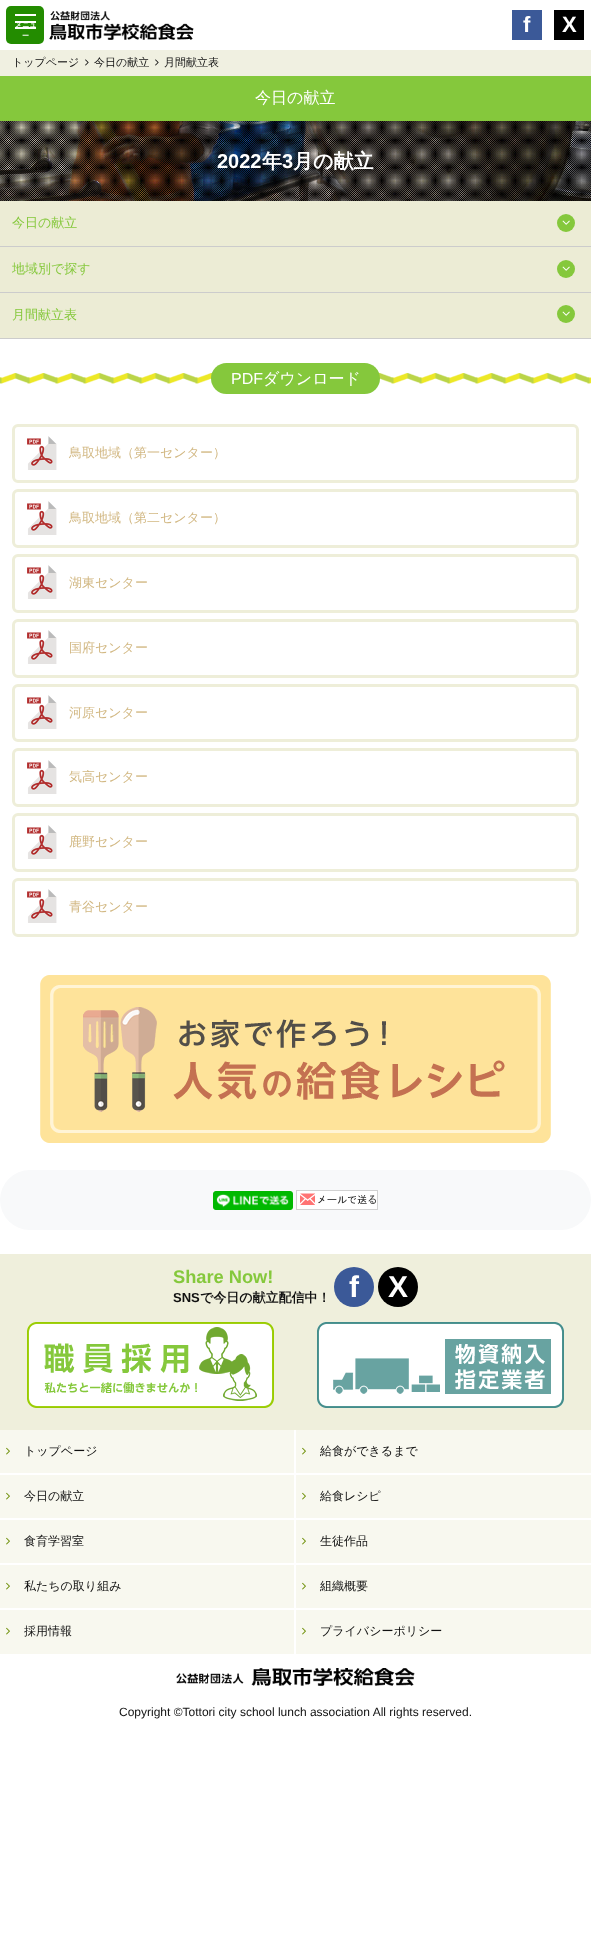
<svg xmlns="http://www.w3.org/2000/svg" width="591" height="1938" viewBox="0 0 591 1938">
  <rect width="100%" height="100%" fill="rgb(255,255,255)"/>
  <rect x="6" y="6" width="38" height="38" rx="5" fill="rgb(35,140,0)"/>
  <rect x="15" y="14" width="21" height="2" fill="rgb(255,255,255)"/>
  <rect x="15" y="21" width="21" height="2" fill="rgb(255,255,255)"/>
  <rect x="15" y="27" width="21" height="2" fill="rgb(255,255,255)"/>
  <g font-family="WenQuanYi Zen Hei" font-size="7" font-weight="bold" fill="rgb(255,255,255)">
    <text x="15" y="27">メニュ</text>
    <text x="22" y="38">ー</text>
  </g>
  <image x="49" y="11" width="145" height="29" href="pic1.png"/>
  <rect x="512" y="10" width="30" height="30" fill="rgb(59,89,152)"/>
  <text x="523" y="32" font-family="Liberation Sans" font-size="22" font-weight="bold" fill="rgb(255,255,255)">f</text>
  <rect x="554" y="10" width="30" height="30" fill="rgb(0,0,0)"/>
  <text x="562" y="32" font-family="Liberation Sans" font-size="22" font-weight="bold" fill="rgb(255,255,255)">X</text>
  <rect x="0" y="50" width="591" height="26" fill="rgb(240,240,225)"/>
  <text x="12" y="66" font-family="WenQuanYi Zen Hei" font-size="11" font-weight="500" fill="rgb(17,17,17)">トップページ</text>
  <image x="85" y="59" width="4" height="7" href="pic2.png"/>
  <text x="94" y="66" font-family="WenQuanYi Zen Hei" font-size="11" font-weight="500" fill="rgb(17,17,17)">今日の献立</text>
  <image x="155" y="59" width="4" height="7" href="pic2.png"/>
  <text x="164" y="66" font-family="WenQuanYi Zen Hei" font-size="11" font-weight="500" fill="rgb(17,17,17)">月間献立表</text>
  <rect x="0" y="76" width="591" height="45" fill="rgb(133,200,60)"/>
  <text x="255" y="103" font-family="WenQuanYi Zen Hei" font-size="16" font-weight="500" fill="rgb(255,255,255)">今日の献立</text>
  <image x="0" y="121" width="591" height="80" href="pic3.png"/>
  <text x="217" y="168" font-family="Liberation Sans" font-size="20" font-weight="bold" fill="rgb(255,255,255)">2022</text>
  <text x="262" y="168" font-family="WenQuanYi Zen Hei" font-size="20" font-weight="bold" fill="rgb(255,255,255)">年</text>
  <text x="282" y="168" font-family="Liberation Sans" font-size="20" font-weight="bold" fill="rgb(255,255,255)">3</text>
  <text x="293" y="168" font-family="WenQuanYi Zen Hei" font-size="20" font-weight="bold" fill="rgb(255,255,255)">月の献立</text>
  <rect x="0" y="201" width="591" height="45" fill="rgb(236,236,213)"/>
  <rect x="0" y="246" width="591" height="1" fill="rgb(204,204,204)"/>
  <text x="12" y="227" font-family="WenQuanYi Zen Hei" font-size="13" font-weight="500" fill="rgb(133,200,60)">今日の献立</text>
  <circle cx="566" cy="223" r="9" fill="rgb(133,200,60)"/>
  <image x="562" y="220" width="8" height="5" href="pic4.png"/>
  <rect x="0" y="247" width="591" height="45" fill="rgb(236,236,213)"/>
  <rect x="0" y="292" width="591" height="1" fill="rgb(204,204,204)"/>
  <text x="12" y="273" font-family="WenQuanYi Zen Hei" font-size="13" font-weight="500" fill="rgb(133,200,60)">地域別で探す</text>
  <circle cx="566" cy="269" r="9" fill="rgb(133,200,60)"/>
  <image x="562" y="266" width="8" height="5" href="pic4.png"/>
  <rect x="0" y="293" width="591" height="45" fill="rgb(236,236,213)"/>
  <rect x="0" y="338" width="591" height="1" fill="rgb(204,204,204)"/>
  <text x="12" y="319" font-family="WenQuanYi Zen Hei" font-size="13" font-weight="500" fill="rgb(133,200,60)">月間献立表</text>
  <circle cx="566" cy="314" r="9" fill="rgb(133,200,60)"/>
  <image x="562" y="311" width="8" height="5" href="pic4.png"/>
  <image x="0" y="373" width="591" height="11" href="pic5.png"/>
  <rect x="211" y="363" width="169" height="31" rx="15.5" fill="rgb(133,200,60)"/>
  <text x="231" y="384" font-family="Liberation Sans" font-size="16" fill="rgb(255,255,255)">PDF</text>
  <text x="263" y="384" font-family="WenQuanYi Zen Hei" font-size="16" font-weight="500" fill="rgb(255,255,255)">ダウンロード</text>
  <rect x="13.5" y="425.5" width="564" height="56" rx="4.5" fill="none" stroke="rgb(238,238,217)" stroke-width="3"/>
  <image x="27" y="436" width="30" height="34" href="pic6.png"/>
  <text x="69" y="457" font-family="WenQuanYi Zen Hei" font-size="13" font-weight="500" fill="rgb(210,184,131)">鳥取地域（第一センター）</text>
  <rect x="13.5" y="490.5" width="564" height="56" rx="4.5" fill="none" stroke="rgb(238,238,217)" stroke-width="3"/>
  <image x="27" y="501" width="30" height="34" href="pic6.png"/>
  <text x="69" y="522" font-family="WenQuanYi Zen Hei" font-size="13" font-weight="500" fill="rgb(210,184,131)">鳥取地域（第二センター）</text>
  <rect x="13.5" y="555.5" width="564" height="56" rx="4.5" fill="none" stroke="rgb(238,238,217)" stroke-width="3"/>
  <image x="27" y="565" width="30" height="34" href="pic6.png"/>
  <text x="69" y="587" font-family="WenQuanYi Zen Hei" font-size="13" font-weight="500" fill="rgb(210,184,131)">湖東センター</text>
  <rect x="13.5" y="620.5" width="564" height="56" rx="4.5" fill="none" stroke="rgb(238,238,217)" stroke-width="3"/>
  <image x="27" y="630" width="30" height="34" href="pic6.png"/>
  <text x="69" y="652" font-family="WenQuanYi Zen Hei" font-size="13" font-weight="500" fill="rgb(210,184,131)">国府センター</text>
  <rect x="13.5" y="685.5" width="564" height="55" rx="4.5" fill="none" stroke="rgb(238,238,217)" stroke-width="3"/>
  <image x="27" y="695" width="30" height="34" href="pic6.png"/>
  <text x="69" y="717" font-family="WenQuanYi Zen Hei" font-size="13" font-weight="500" fill="rgb(210,184,131)">河原センター</text>
  <rect x="13.5" y="749.5" width="564" height="56" rx="4.5" fill="none" stroke="rgb(238,238,217)" stroke-width="3"/>
  <image x="27" y="760" width="30" height="34" href="pic6.png"/>
  <text x="69" y="781" font-family="WenQuanYi Zen Hei" font-size="13" font-weight="500" fill="rgb(210,184,131)">気高センター</text>
  <rect x="13.5" y="814.5" width="564" height="56" rx="4.5" fill="none" stroke="rgb(238,238,217)" stroke-width="3"/>
  <image x="27" y="825" width="30" height="34" href="pic6.png"/>
  <text x="69" y="846" font-family="WenQuanYi Zen Hei" font-size="13" font-weight="500" fill="rgb(210,184,131)">鹿野センター</text>
  <rect x="13.5" y="879.5" width="564" height="56" rx="4.5" fill="none" stroke="rgb(238,238,217)" stroke-width="3"/>
  <image x="27" y="889" width="30" height="34" href="pic6.png"/>
  <text x="69" y="911" font-family="WenQuanYi Zen Hei" font-size="13" font-weight="500" fill="rgb(210,184,131)">青谷センター</text>
  <image x="40" y="975" width="511" height="168" href="pic7.png"/>
  <rect x="0" y="1170" width="591" height="60" rx="30" fill="rgb(248,249,250)"/>
  <image x="213" y="1191" width="80" height="19" href="pic8.png"/>
  <image x="296" y="1190" width="82" height="20" href="pic9.png"/>
  <rect x="0" y="1254" width="591" height="176" fill="rgb(239,239,220)"/>
  <text x="173" y="1283" font-family="Liberation Sans" font-size="18.25" font-weight="bold" fill="rgb(133,200,60)">Share Now!</text>
  <text x="173" y="1302" font-family="Liberation Sans" font-size="13" font-weight="bold" fill="rgb(17,17,17)">SNS</text>
  <text x="200" y="1302" font-family="WenQuanYi Zen Hei" font-size="13" font-weight="bold" fill="rgb(17,17,17)">で今日の献立配信中！</text>
  <circle cx="354" cy="1287" r="20" fill="rgb(59,89,152)"/>
  <text x="349" y="1297" font-family="Liberation Sans" font-size="30" font-weight="bold" fill="rgb(255,255,255)">f</text>
  <circle cx="398" cy="1287" r="20" fill="rgb(0,0,0)"/>
  <text x="388" y="1297" font-family="Liberation Sans" font-size="30" font-weight="bold" fill="rgb(255,255,255)">X</text>
  <image x="27" y="1322" width="247" height="86" href="pic10.png"/>
  <image x="317" y="1322" width="247" height="86" href="pic11.png"/>
  <rect x="0" y="1430" width="294" height="43" fill="rgb(248,248,239)"/>
  <image x="6" y="1447" width="4" height="8" href="pic12.png"/>
  <text x="24" y="1455" font-family="WenQuanYi Zen Hei" font-size="12" font-weight="500" fill="rgb(17,17,17)">トップページ</text>
  <rect x="296" y="1430" width="295" height="43" fill="rgb(248,248,239)"/>
  <image x="302" y="1447" width="4" height="8" href="pic12.png"/>
  <text x="320" y="1455" font-family="WenQuanYi Zen Hei" font-size="12" font-weight="500" fill="rgb(17,17,17)">給食ができるまで</text>
  <rect x="0" y="1475" width="294" height="43" fill="rgb(248,248,239)"/>
  <image x="6" y="1492" width="4" height="8" href="pic12.png"/>
  <text x="24" y="1500" font-family="WenQuanYi Zen Hei" font-size="12" font-weight="500" fill="rgb(17,17,17)">今日の献立</text>
  <rect x="296" y="1475" width="295" height="43" fill="rgb(248,248,239)"/>
  <image x="302" y="1492" width="4" height="8" href="pic12.png"/>
  <text x="320" y="1500" font-family="WenQuanYi Zen Hei" font-size="12" font-weight="500" fill="rgb(17,17,17)">給食レシピ</text>
  <rect x="0" y="1520" width="294" height="43" fill="rgb(248,248,239)"/>
  <image x="6" y="1537" width="4" height="8" href="pic12.png"/>
  <text x="24" y="1545" font-family="WenQuanYi Zen Hei" font-size="12" font-weight="500" fill="rgb(17,17,17)">食育学習室</text>
  <rect x="296" y="1520" width="295" height="43" fill="rgb(248,248,239)"/>
  <image x="302" y="1537" width="4" height="8" href="pic12.png"/>
  <text x="320" y="1545" font-family="WenQuanYi Zen Hei" font-size="12" font-weight="500" fill="rgb(17,17,17)">生徒作品</text>
  <rect x="0" y="1565" width="294" height="43" fill="rgb(248,248,239)"/>
  <image x="6" y="1582" width="4" height="8" href="pic12.png"/>
  <text x="24" y="1590" font-family="WenQuanYi Zen Hei" font-size="12" font-weight="500" fill="rgb(17,17,17)">私たちの取り組み</text>
  <rect x="296" y="1565" width="295" height="43" fill="rgb(248,248,239)"/>
  <image x="302" y="1582" width="4" height="8" href="pic12.png"/>
  <text x="320" y="1590" font-family="WenQuanYi Zen Hei" font-size="12" font-weight="500" fill="rgb(17,17,17)">組織概要</text>
  <rect x="0" y="1610" width="294" height="44" fill="rgb(248,248,239)"/>
  <image x="6" y="1627" width="4" height="8" href="pic12.png"/>
  <text x="24" y="1635" font-family="WenQuanYi Zen Hei" font-size="12" font-weight="500" fill="rgb(17,17,17)">採用情報</text>
  <rect x="296" y="1610" width="295" height="44" fill="rgb(248,248,239)"/>
  <image x="302" y="1627" width="4" height="8" href="pic12.png"/>
  <text x="320" y="1635" font-family="WenQuanYi Zen Hei" font-size="12" font-weight="500" fill="rgb(17,17,17)">プライバシーポリシー</text>
  <image x="176" y="1668" width="239" height="18" href="pic13.png"/>
  <text x="119" y="1716" font-family="Liberation Sans" font-size="12" fill="rgb(17,17,17)">Copyright ©Tottori city school lunch association All rights reserved.</text>
</svg>
